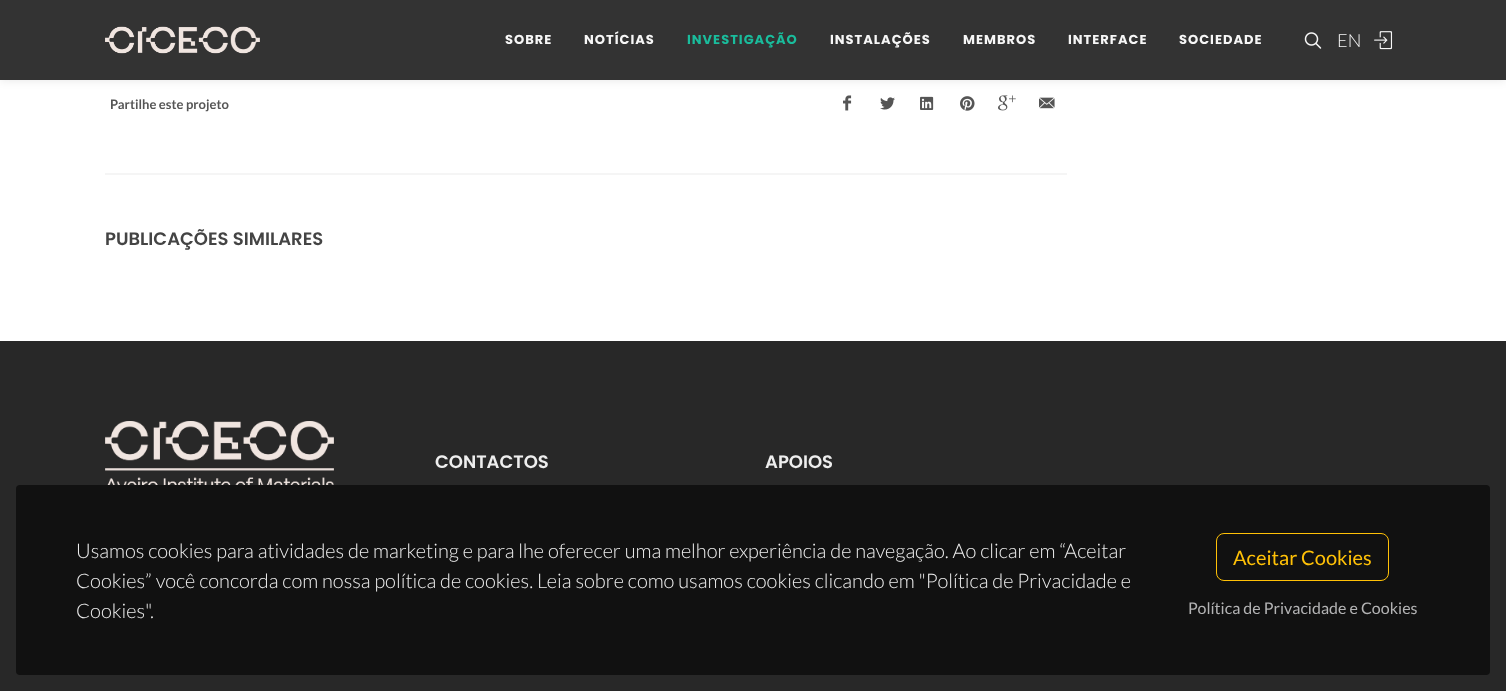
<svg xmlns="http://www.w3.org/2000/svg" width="1506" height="691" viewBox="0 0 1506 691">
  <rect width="100%" height="100%" fill="rgb(255,255,255)"/>
  <image x="843" y="95" width="9" height="16" href="pic4.png"/>
  <image x="998" y="95" width="18" height="16" href="pic8.png"/>
  <rect x="0" y="0" width="1506" height="80" fill="rgba(0,0,0,0.1)" filter="blur(5px)"/>
  <rect x="0" y="0" width="1506" height="80" fill="rgb(51,51,51)"/>
  <image x="105" y="26" width="155" height="28" href="pic1.png"/>
  <g font-family="Poppins" font-size="13" font-weight="bold" letter-spacing="1" fill="rgb(247,247,247)">
    <text x="505" y="44">SOBRE</text>
    <text x="584" y="44">NOTÍCIAS</text>
  </g>
  <text x="687" y="44" font-family="Poppins" font-size="13" font-weight="bold" letter-spacing="1" fill="rgb(26,188,156)">INVESTIGAÇÃO</text>
  <g font-family="Poppins" font-size="13" font-weight="bold" letter-spacing="1" fill="rgb(247,247,247)">
    <text x="830" y="44">INSTALAÇÕES</text>
    <text x="963" y="44">MEMBROS</text>
    <text x="1068" y="44">INTERFACE</text>
    <text x="1179" y="44">SOCIEDADE</text>
  </g>
  <image x="1304" y="32" width="18" height="17" href="pic2.png"/>
  <text x="1337" y="47" font-family="Lato" font-size="18" font-weight="300" fill="rgb(247,247,247)">EN</text>
  <image x="1374" y="31" width="19" height="19" href="pic3.png"/>
  <text x="110" y="109" font-family="Lato" font-size="13" font-weight="bold" fill="rgb(85,85,85)">Partilhe este projeto</text>
  <image x="880" y="97" width="15" height="13" href="pic5.png"/>
  <image x="920" y="96" width="14" height="14" href="pic6.png"/>
  <image x="960" y="96" width="15" height="15" href="pic7.png"/>
  <image x="1039" y="97" width="16" height="12" href="pic9.png"/>
  <rect x="105" y="173" width="962" height="2" fill="rgb(245,245,245)"/>
  <text x="105" y="245" font-family="Poppins" font-size="18" font-weight="600" fill="rgb(68,68,68)">PUBLICAÇÕES SIMILARES</text>
  <rect x="0" y="341" width="1506" height="350" fill="rgb(40,40,40)"/>
  <image x="105" y="421" width="229" height="64" href="pic10.png"/>
  <g font-family="Poppins" font-size="18" font-weight="600" fill="rgb(238,238,238)">
    <text x="435" y="468">CONTACTOS</text>
    <text x="765" y="468">APOIOS</text>
  </g>
  <rect x="16" y="485" width="1474" height="190" rx="4" fill="rgb(17,17,17)"/>
  <g font-family="Lato" font-size="20" font-weight="300" fill="rgb(238,238,238)">
    <text>
      <tspan x="76" y="558">Usamos cookies para atividades de marketing e para lhe oferecer uma melhor experiência de navegação. Ao clicar em “Aceitar</tspan>
      <tspan x="76" y="588">Cookies” você concorda com nossa política de cookies. Leia sobre como usamos cookies clicando em "Política de Privacidade e</tspan>
      <tspan x="76" y="618">Cookies".</tspan>
    </text>
  </g>
  <rect x="1216.5" y="533.5" width="172" height="47" rx="7.5" fill="none" stroke="rgb(255,193,7)"/>
  <text x="1233" y="565" font-family="Lato" font-size="20" fill="rgb(255,193,7)">Aceitar Cookies</text>
  <text x="1188" y="614" font-family="Lato" font-size="16" fill="rgb(179,179,180)">Política de Privacidade e Cookies</text>
</svg>
